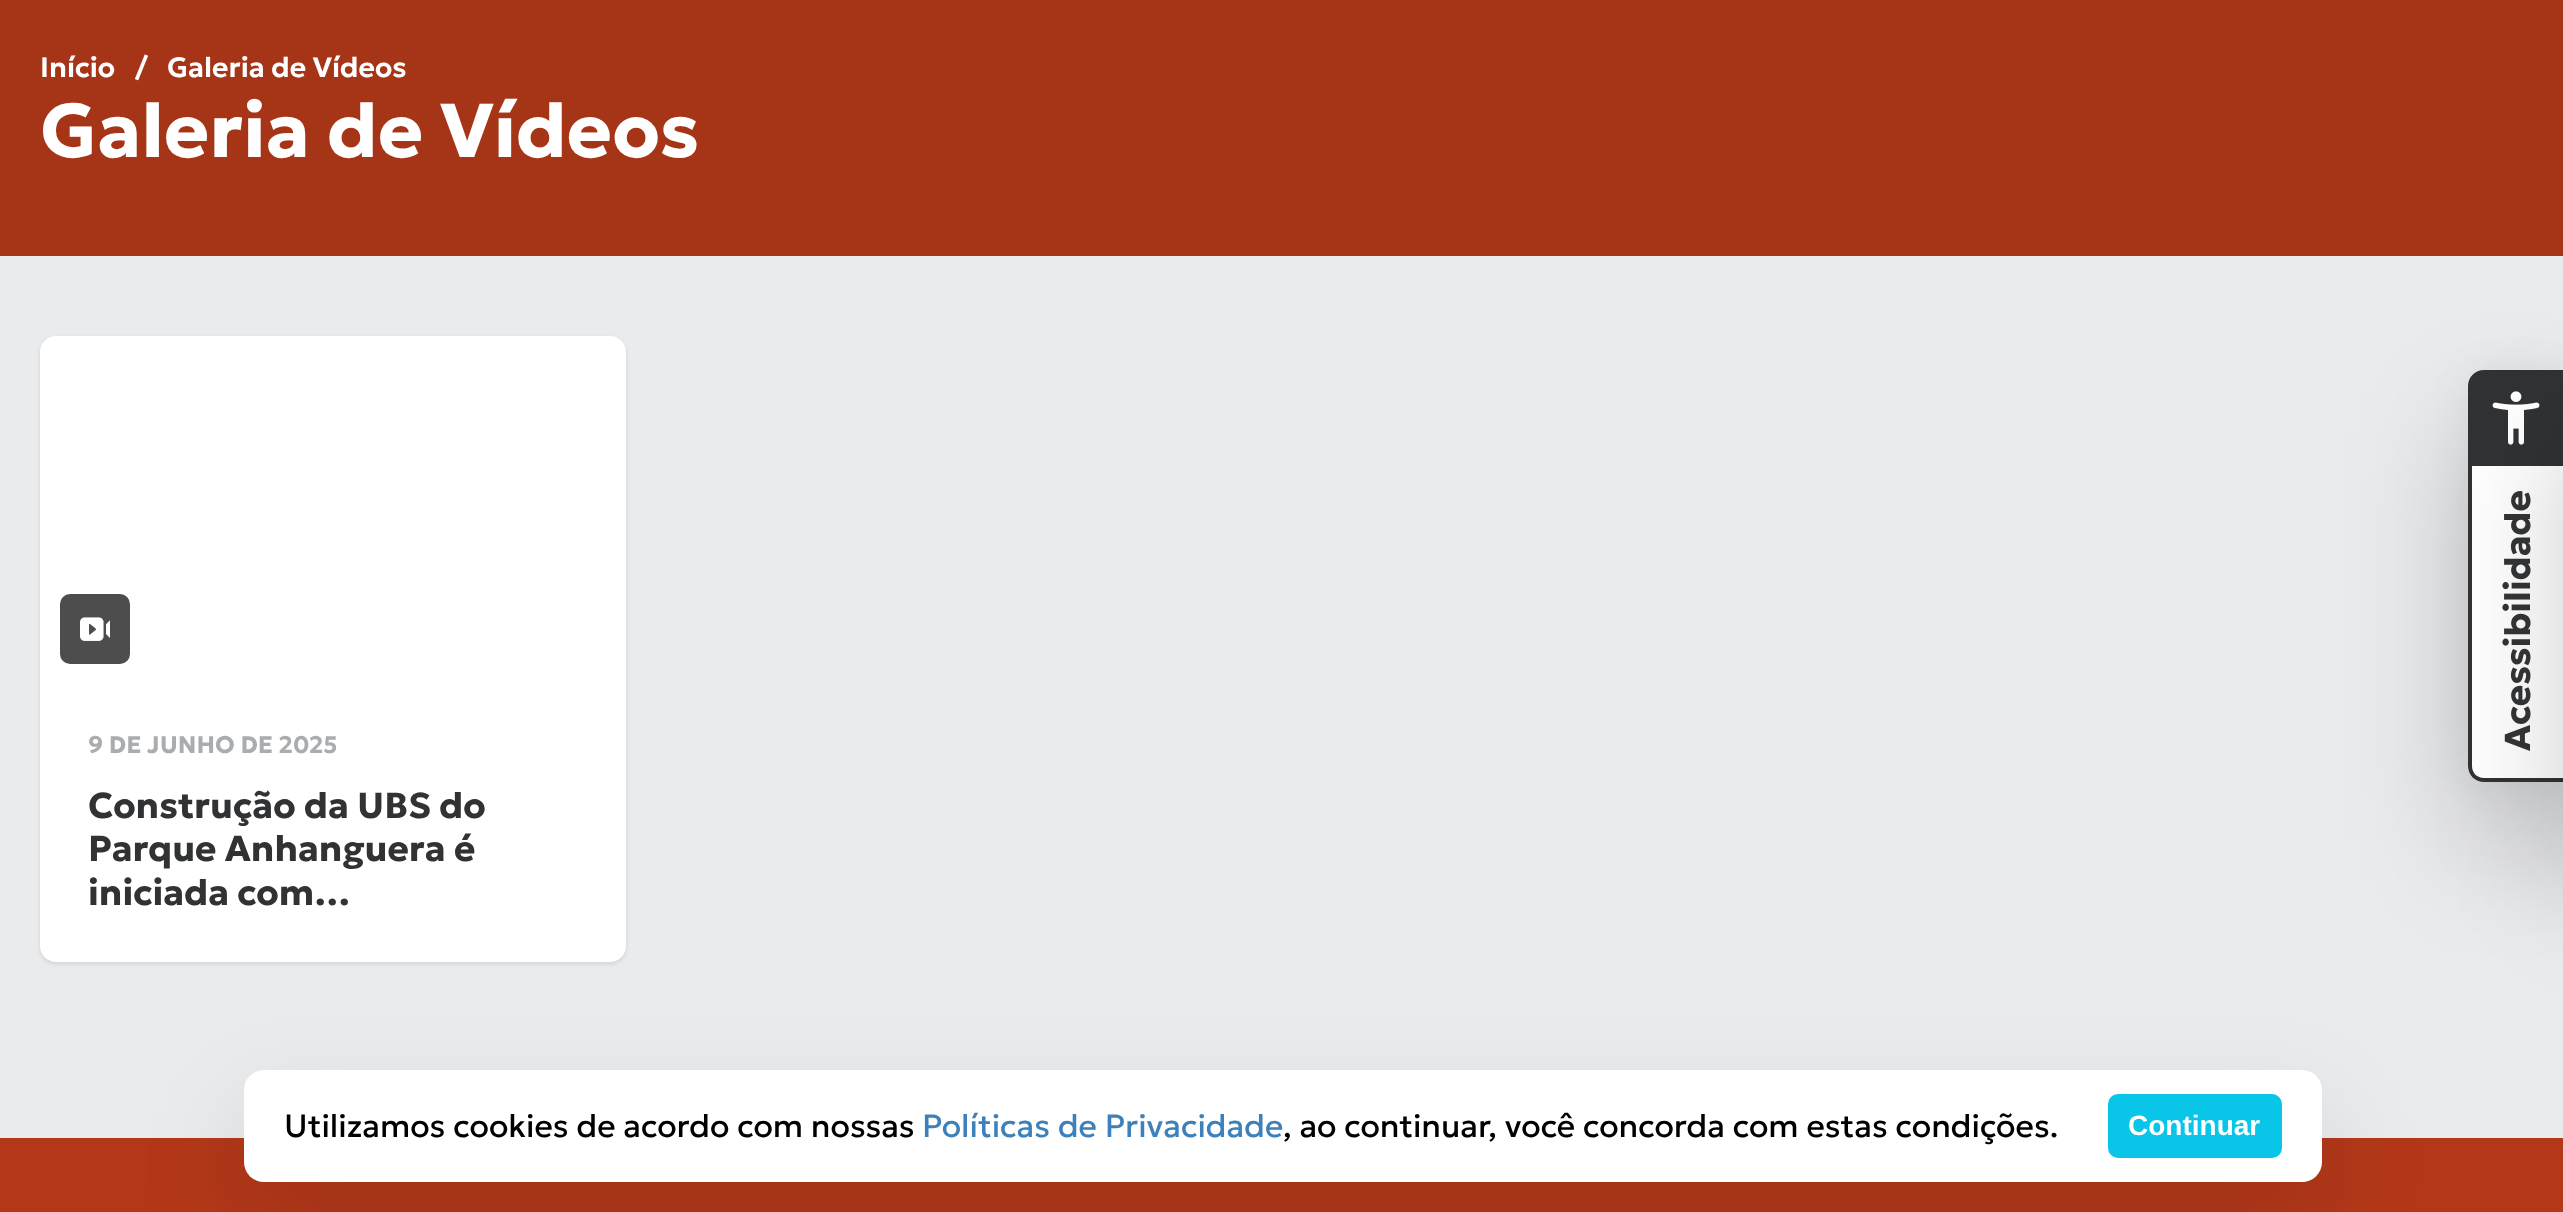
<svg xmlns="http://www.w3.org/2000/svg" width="2563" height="1212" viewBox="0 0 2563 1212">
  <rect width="100%" height="100%" fill="rgb(234,235,237)"/>
  <rect x="0" y="0" width="2563" height="256" fill="rgb(166,52,23)"/>
  <g font-family="Geologica" font-size="28" font-weight="600" fill="rgb(255,255,255)">
    <text x="40" y="77">Início</text>
    <text x="135" y="77">/</text>
    <text x="167" y="77">Galeria de Vídeos</text>
  </g>
  <text x="40" y="157" font-family="Geologica" font-size="76" font-weight="bold" fill="rgb(255,255,255)">Galeria de Vídeos</text>
  <rect x="2468" y="370" width="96" height="412" rx="16" fill="rgba(0,0,0,0.05)" filter="blur(20px)"/>
  <rect x="2468" y="430" width="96" height="412" rx="16" fill="rgba(0,0,0,0.2)" filter="blur(60px)"/>
  <path d="M2484 370H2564V466H2468V386C2468 377 2475 370 2484 370Z" fill="rgb(48,50,52)"/>
  <image x="2492" y="391" width="48" height="54" href="pic1.png"/>
  <path d="M2468 466H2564V782H2484C2475 782 2468 775 2468 766Z" fill="rgb(255,255,255)"/>
  <path d="M2468 466H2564V782H2484C2475 782 2468 775 2468 766ZM2472 466H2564V778H2484C2477 778 2472 773 2472 766Z" fill="rgb(48,50,52)" fill-rule="evenodd"/>
  <rect x="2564" y="430" width="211" height="452" rx="32" fill="rgba(0,0,0,0.2)" filter="blur(60px)"/>
  <text x="2530" y="751" transform="rotate(-90 2530 751)" font-family="Geologica" font-size="36" font-weight="bold" fill="rgb(48,50,52)">Acessibilidade</text>
  <rect x="40" y="338" width="586" height="626" rx="16" fill="rgba(0,0,0,0.1)" filter="blur(2px)"/>
  <rect x="40" y="336" width="586" height="626" rx="16" fill="rgb(255,255,255)"/>
  <rect x="60" y="594" width="70" height="70" rx="10" fill="rgb(77,77,77)"/>
  <image x="80" y="617" width="30" height="24" href="pic2.png"/>
  <text x="88" y="753" font-family="Geologica" font-size="24" font-weight="bold" fill="rgb(170,173,176)">9 DE JUNHO DE 2025</text>
  <g font-family="Geologica" font-size="36" font-weight="bold" fill="rgb(48,50,52)">
    <text>
      <tspan x="88" y="818">Construção da UBS do</tspan>
      <tspan x="88" y="861">Parque Anhanguera é</tspan>
      <tspan x="88" y="905">iniciada com…</tspan>
    </text>
  </g>
  <rect x="0" y="1138" width="2563" height="74" fill="rgb(179,56,25)"/>
  <rect x="244" y="1110" width="2078" height="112" rx="20" fill="rgba(0,0,0,0.1)" filter="blur(50px)"/>
  <rect x="244" y="1070" width="2078" height="112" rx="20" fill="rgb(255,255,255)"/>
  <text x="284" y="1137" font-family="Geologica" font-size="32" fill="rgb(0,0,0)">Utilizamos cookies de acordo com nossas</text>
  <text x="922" y="1137" font-family="Geologica" font-size="32" fill="rgb(60,128,188)">Políticas de Privacidade</text>
  <text x="1283" y="1137" font-family="Geologica" font-size="32" fill="rgb(0,0,0)">, ao continuar, você concorda com estas condições.</text>
  <rect x="2108" y="1094" width="174" height="64" rx="10" fill="rgb(9,197,231)"/>
  <text x="2128" y="1135" font-family="Liberation Sans" font-size="28" font-weight="bold" fill="rgb(255,255,255)">Continuar</text>
</svg>
